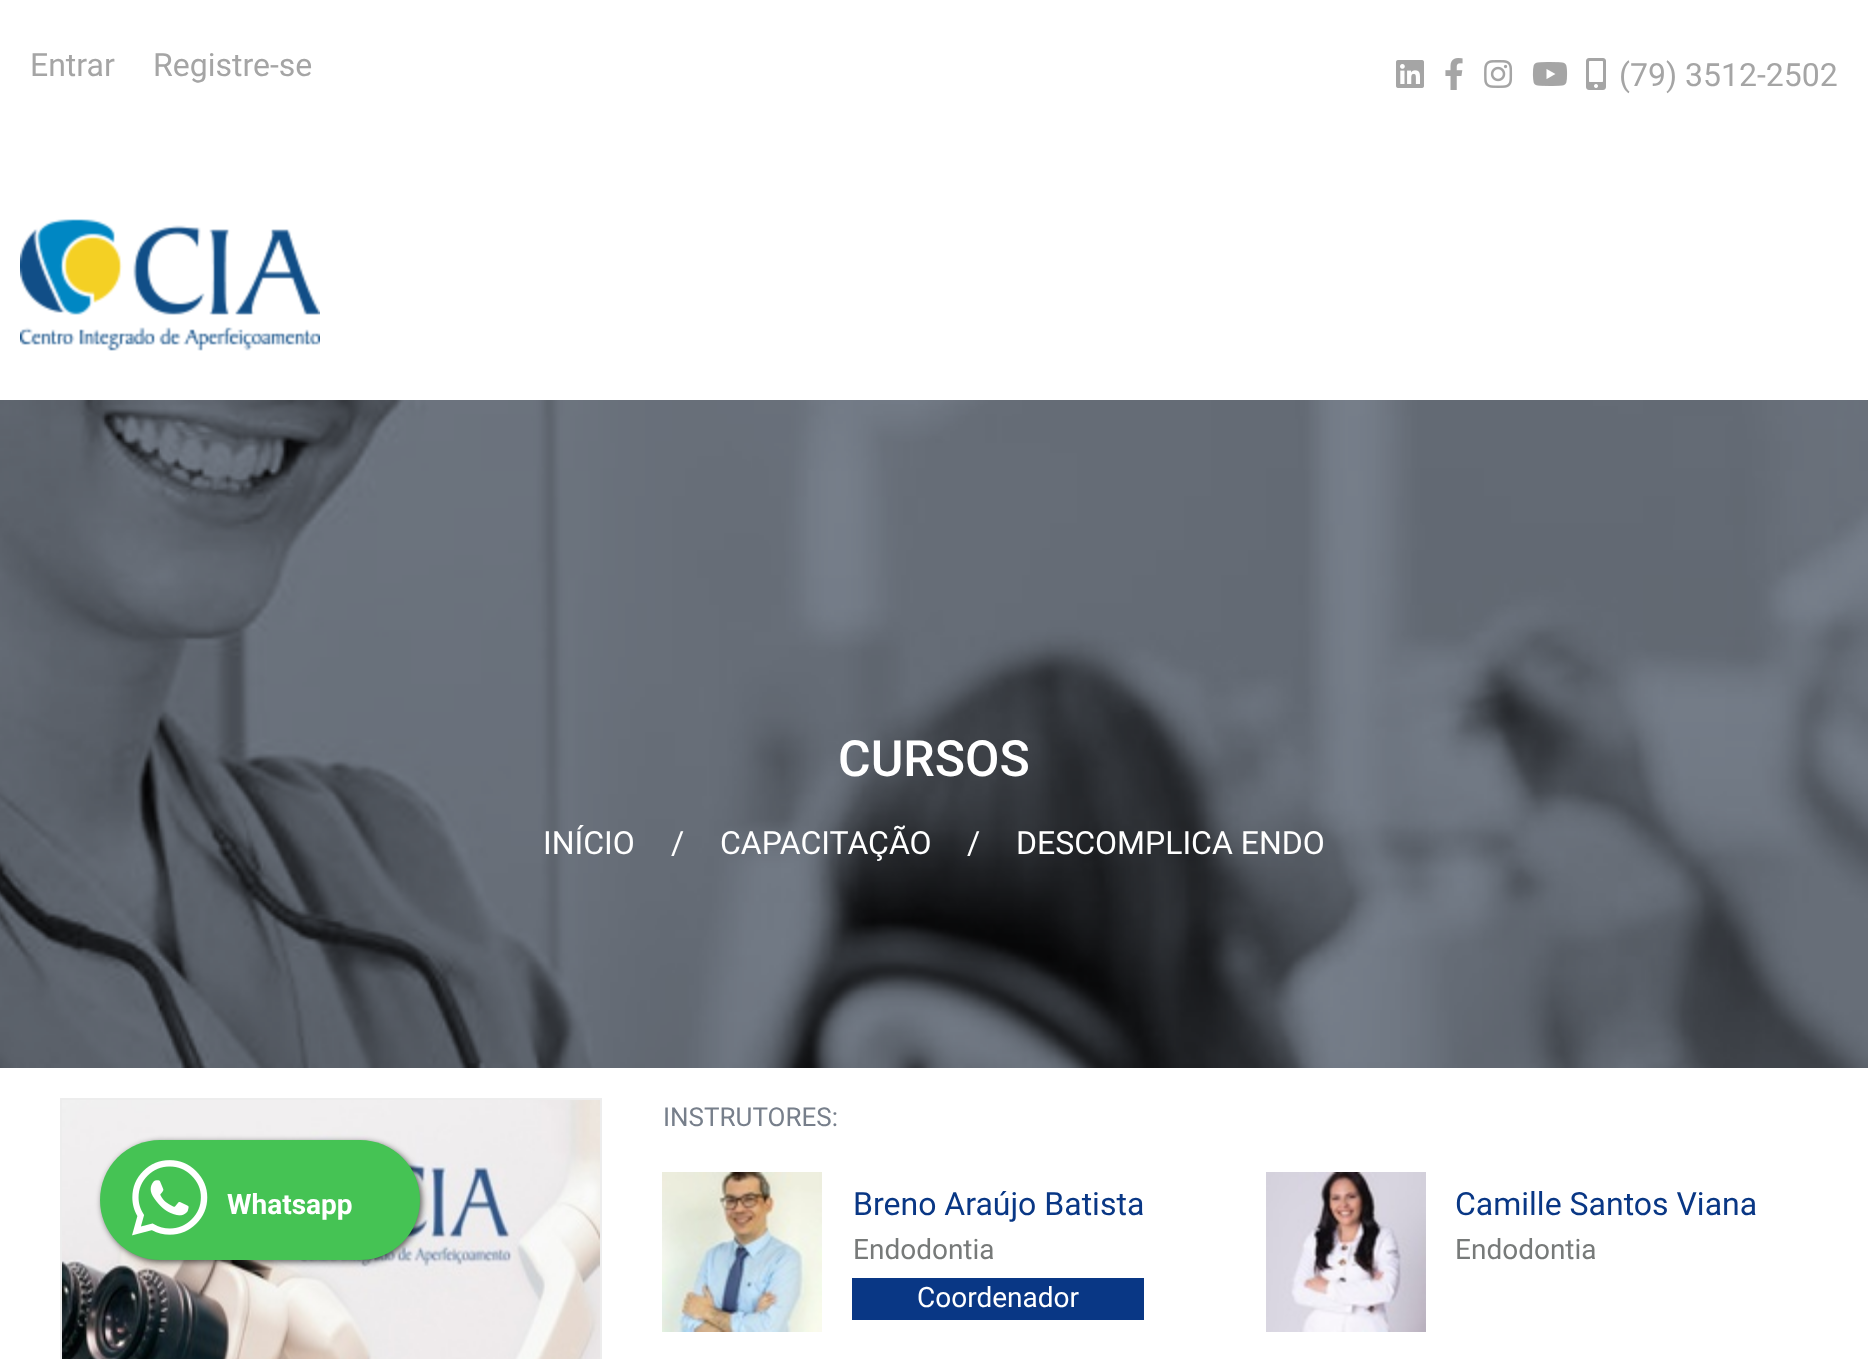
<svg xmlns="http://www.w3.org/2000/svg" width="1868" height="1359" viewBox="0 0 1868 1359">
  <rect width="100%" height="100%" fill="rgb(255,255,255)"/>
  <g font-family="Roboto" font-size="32" fill="rgb(165,165,165)">
    <text x="30" y="76">Entrar</text>
    <text x="153" y="76">Registre-se</text>
  </g>
  <image x="1396" y="60" width="28" height="28" href="pic1.png"/>
  <image x="1445" y="58" width="18" height="32" href="pic2.png"/>
  <image x="1484" y="60" width="29" height="28" href="pic3.png"/>
  <image x="1532" y="62" width="36" height="24" href="pic4.png"/>
  <image x="1586" y="58" width="20" height="32" href="pic5.png"/>
  <text x="1619" y="86" font-family="Roboto" font-size="32" fill="rgb(165,165,165)">(79) 3512-2502</text>
  <image x="20" y="219" width="300" height="132" href="pic6.png"/>
  <image x="0" y="400" width="1868" height="668" href="pic7.png"/>
  <text x="838" y="776" font-family="Roboto" font-size="50" font-weight="500" fill="rgb(255,255,255)">CURSOS</text>
  <g font-family="Roboto" font-size="32" fill="rgb(255,255,255)">
    <text x="543" y="854">INÍCIO</text>
    <text x="671" y="854">/</text>
    <text x="720" y="854">CAPACITAÇÃO</text>
    <text x="967" y="854">/</text>
    <text x="1016" y="854">DESCOMPLICA ENDO</text>
  </g>
  <rect x="61" y="1099" width="540" height="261" fill="none" stroke="rgb(237,237,237)" stroke-width="2"/>
  <image x="62" y="1100" width="538" height="259" href="pic9.png"/>
  <rect x="102" y="1142" width="320" height="120" rx="60" fill="rgba(0,0,0,0.61)" filter="blur(3px)"/>
  <rect x="100" y="1140" width="320" height="120" rx="60" fill="rgb(69,195,84)"/>
  <image x="132" y="1160" width="76" height="76" href="pic8.png"/>
  <text x="227" y="1214" font-family="Roboto" font-size="28" font-weight="bold" fill="rgb(255,255,255)">Whatsapp</text>
  <text x="663" y="1126" font-family="Roboto" font-size="26" fill="rgb(119,127,139)">INSTRUTORES:</text>
  <image x="662" y="1172" width="160" height="160" href="pic10.png"/>
  <text x="853" y="1215" font-family="Roboto" font-size="32" fill="rgb(9,55,133)">Breno Araújo Batista</text>
  <text x="853" y="1259" font-family="Roboto" font-size="28" fill="rgb(119,122,121)">Endodontia</text>
  <rect x="852" y="1278" width="292" height="42" fill="rgb(9,55,133)"/>
  <text x="917" y="1307" font-family="Roboto" font-size="28" fill="rgb(255,255,255)">Coordenador</text>
  <image x="1266" y="1172" width="160" height="160" href="pic11.png"/>
  <text x="1455" y="1215" font-family="Roboto" font-size="32" fill="rgb(9,55,133)">Camille Santos Viana</text>
  <text x="1455" y="1259" font-family="Roboto" font-size="28" fill="rgb(119,122,121)">Endodontia</text>
</svg>
